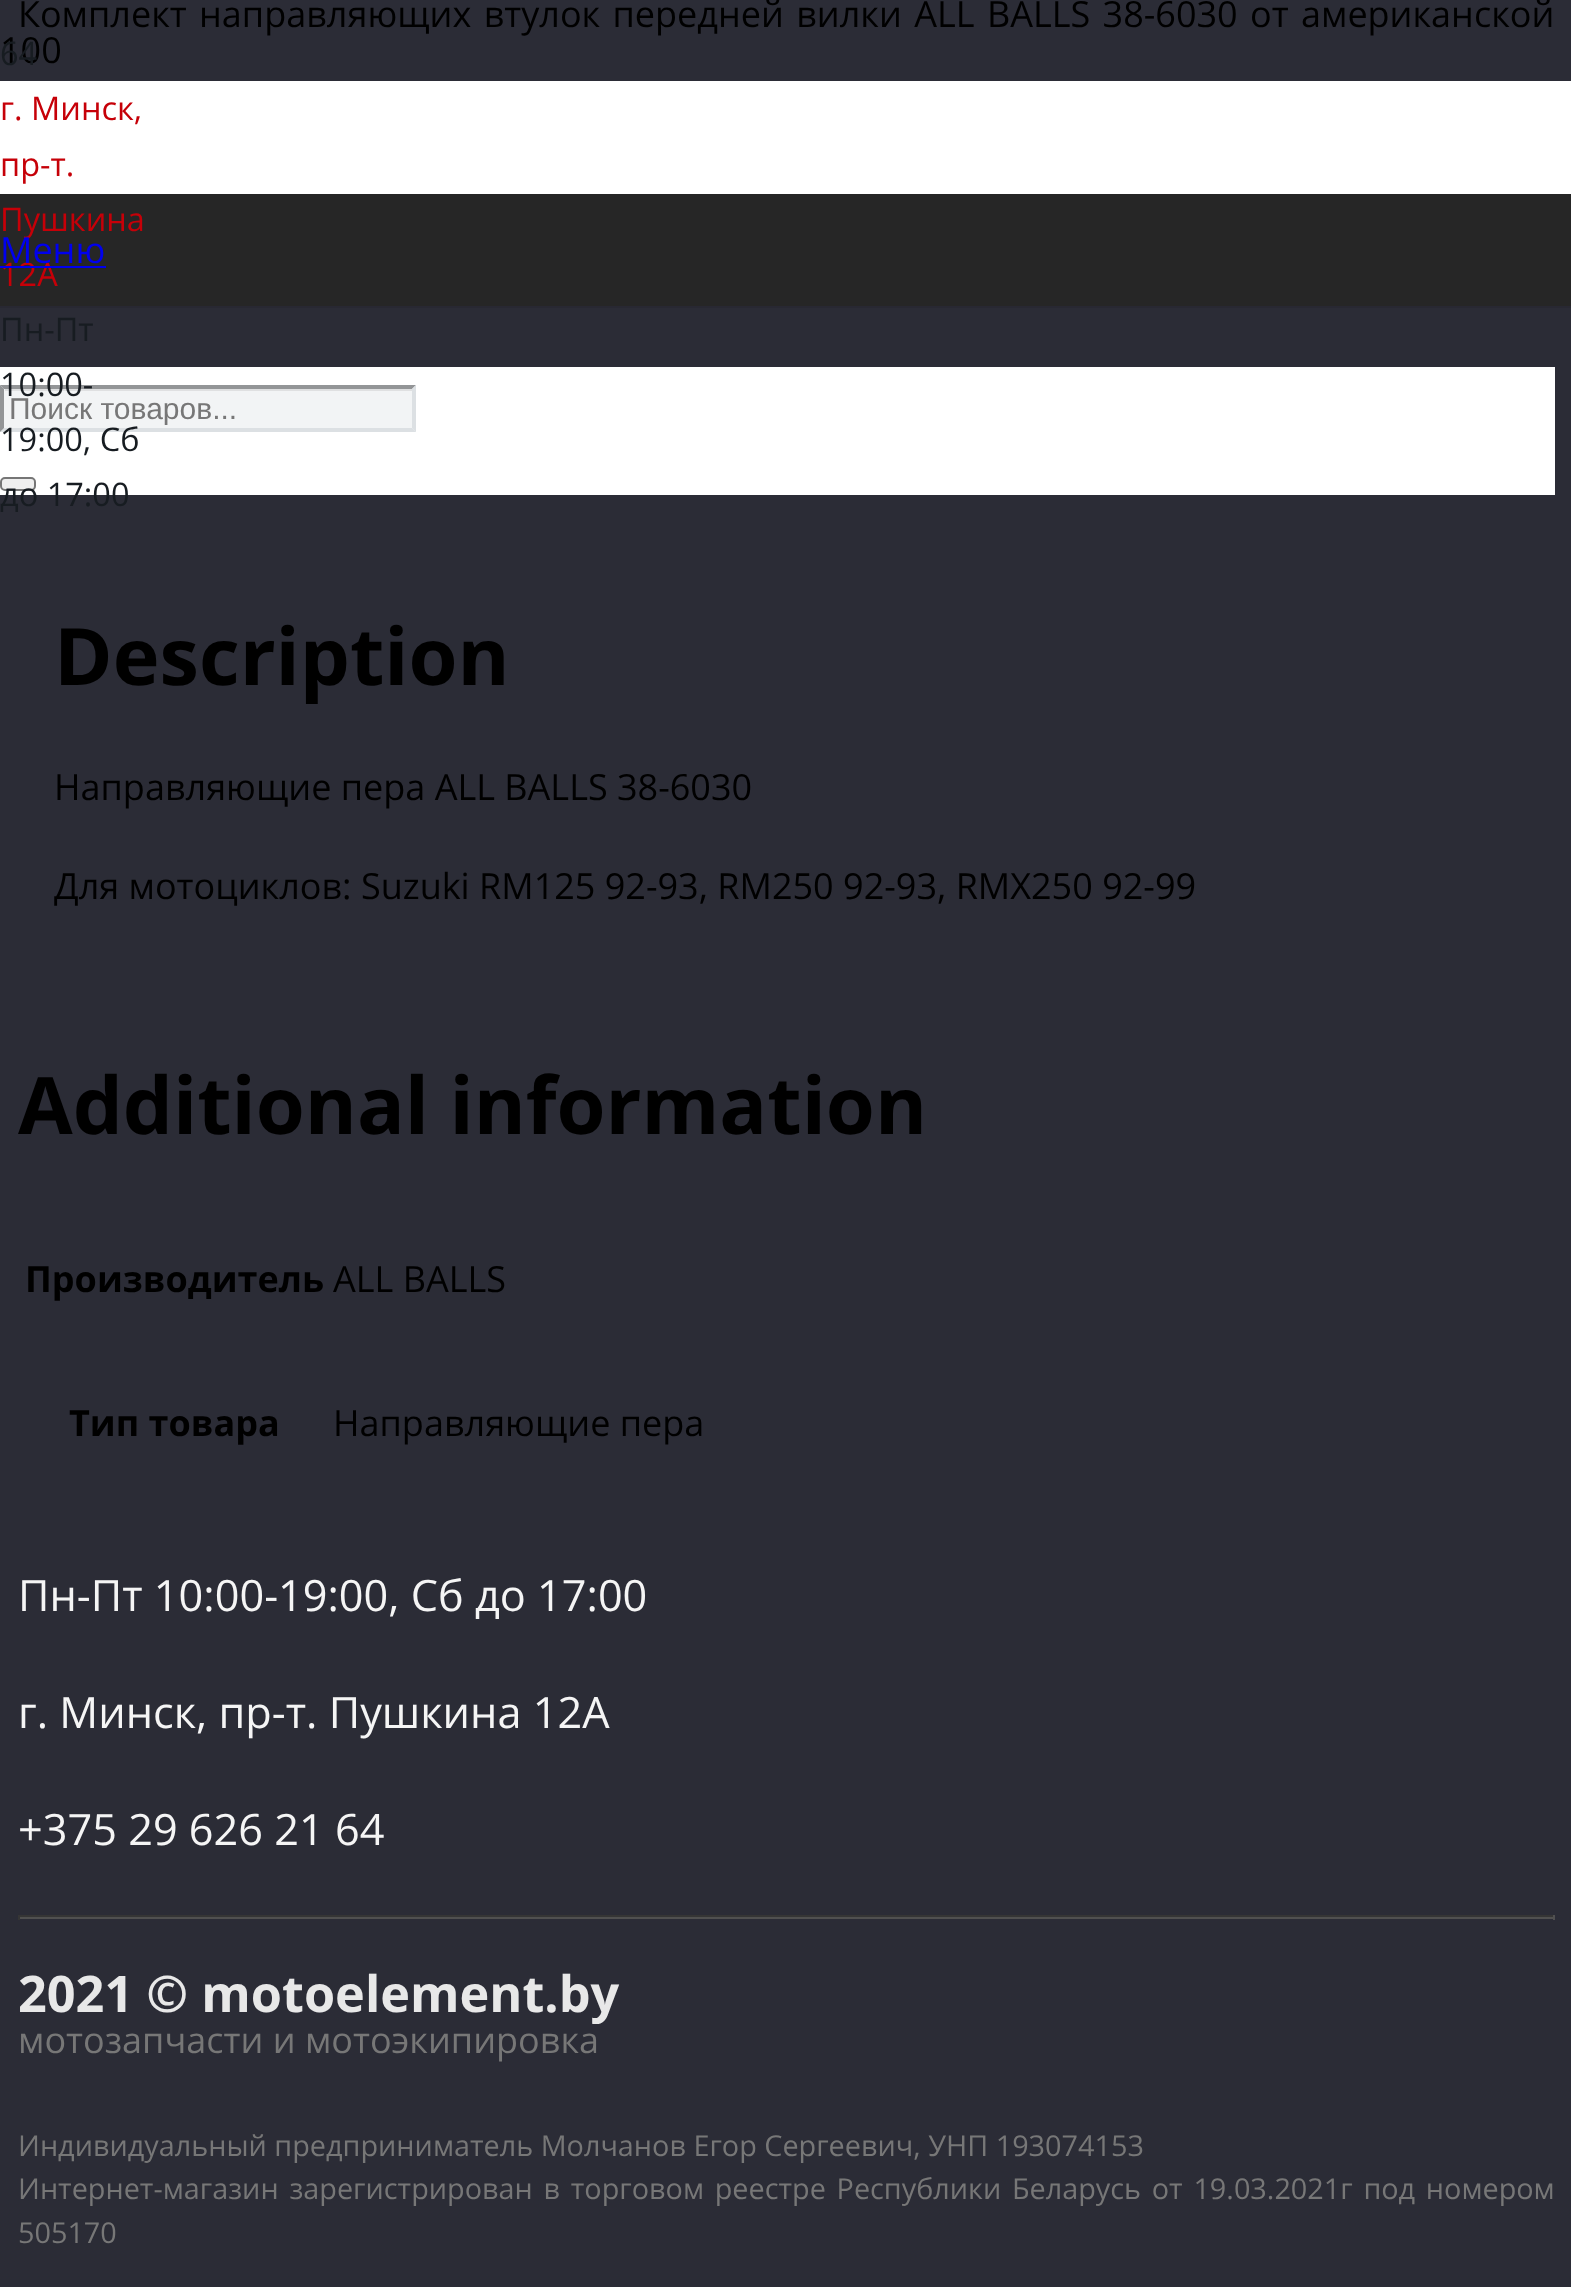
<svg xmlns="http://www.w3.org/2000/svg" width="1571" height="2287" viewBox="0 0 1571 2287">
  <defs>
    <clipPath id="clip1"><rect x="9" y="392" width="398" height="33"/></clipPath>
  </defs>
  <rect width="100%" height="100%" fill="rgb(43,44,54)"/>
  <text x="18" y="27" word-spacing="3" font-family="Open Sans" font-size="36" fill="rgb(0,0,0)">Комплект направляющих втулок передней вилки ALL BALLS 38-6030 от американской</text>
  <text x="54" y="685" font-family="Open Sans" font-size="79.25" font-weight="bold" fill="rgb(0,0,0)">Description</text>
  <g font-family="Open Sans" font-size="36" fill="rgb(0,0,0)">
    <text x="54" y="800">Направляющие пера ALL BALLS 38-6030</text>
    <text x="54" y="899">Для мотоциклов: Suzuki RM125 92-93, RM250 92-93, RMX250 92-99</text>
  </g>
  <text x="18" y="1134" font-family="Open Sans" font-size="79.25" font-weight="bold" fill="rgb(0,0,0)">Additional information</text>
  <text x="25" y="1292" font-family="Open Sans" font-size="36" font-weight="bold" fill="rgb(0,0,0)">Производитель</text>
  <text x="333" y="1292" font-family="Open Sans" font-size="36" fill="rgb(0,0,0)">ALL BALLS</text>
  <text x="69" y="1436" font-family="Open Sans" font-size="36" font-weight="bold" fill="rgb(0,0,0)">Тип товара</text>
  <g font-family="Open Sans" font-size="36" fill="rgb(0,0,0)">
    <text x="333" y="1436">Направляющие пера</text>
    <text x="0" y="63">100</text>
  </g>
  <rect x="0" y="81" width="1571" height="113" fill="rgb(255,255,255)"/>
  <text x="0" y="65" font-family="Open Sans" font-size="32.5" fill="rgb(23,28,33)">64</text>
  <g font-family="Open Sans" font-size="32.5" fill="rgb(198,0,8)">
    <text>
      <tspan x="0" y="120">г. Минск,</tspan>
      <tspan x="0" y="176">пр-т.</tspan>
    </text>
  </g>
  <rect x="0" y="194" width="1571" height="112" fill="rgb(38,38,38)"/>
  <g font-family="Open Sans" font-size="32.5" fill="rgb(198,0,8)">
    <text>
      <tspan x="0" y="231">Пушкина</tspan>
      <tspan x="0" y="286">12А</tspan>
    </text>
  </g>
  <text x="0" y="341" font-family="Open Sans" font-size="32.5" fill="rgb(23,28,33)">Пн-Пт</text>
  <rect x="0" y="367" width="1555" height="128" fill="rgb(255,255,255)"/>
  <rect x="0" y="385" width="416" height="47" fill="rgb(242,244,245)"/>
  <rect x="5" y="389" width="407" height="2" fill="rgb(223,224,225)"/>
  <path d="M0 385H416L412 389H4Z" fill="rgb(147,149,151)"/>
  <path d="M416 385V432L412 428V389Z" fill="rgb(220,224,227)"/>
  <path d="M416 432H0L4 428H412Z" fill="rgb(220,224,227)"/>
  <path d="M0 432V385L4 389V428Z" fill="rgb(147,149,151)"/>
  <g font-family="Open Sans" font-size="32.5" fill="rgb(23,28,33)">
    <text>
      <tspan x="0" y="396">10:00-</tspan>
      <tspan x="0" y="451">19:00, Сб</tspan>
    </text>
  </g>
  <rect x="1" y="478" width="34" height="12" rx="4" fill="rgb(239,239,239)" stroke="rgb(118,118,118)" stroke-width="2"/>
  <text x="0" y="506" font-family="Open Sans" font-size="32.5" fill="rgb(23,28,33)">до 17:00</text>
  <path d="M0 306V308H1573V196V306Z" fill="rgb(40,40,50)"/>
  <text x="0" y="263" font-family="Open Sans" font-size="36" fill="rgb(0,0,238)">Меню</text>
  <rect x="0" y="266" width="106" height="2" fill="rgb(0,0,238)"/>
  <g clip-path="url(#clip1)">
    <text x="9" y="419" font-family="Liberation Sans" font-size="30" fill="rgb(119,119,119)">Поиск товаров...</text>
  </g>
  <g font-family="Open Sans" font-size="43.25" fill="rgb(245,245,245)">
    <text x="18" y="1611">Пн-Пт 10:00-19:00, Сб до 17:00</text>
    <text x="18" y="1728">г. Минск, пр-т. Пушкина 12А</text>
    <text x="18" y="1845">+375 29 626 21 64</text>
  </g>
  <rect x="18" y="1915" width="1537" height="2" fill="rgb(53,53,53)"/>
  <rect x="1553" y="1915" width="2" height="5" fill="rgb(80,80,80)"/>
  <rect x="18" y="1917" width="1537" height="2" fill="rgb(80,80,80)"/>
  <rect x="18" y="1915" width="2" height="5" fill="rgb(53,53,53)"/>
  <text x="18" y="2012" font-family="Open Sans" font-size="50.4" font-weight="bold" fill="rgb(232,232,232)">2021 © motoelement.by</text>
  <text x="18" y="2053" font-family="Open Sans" font-size="36" fill="rgb(119,119,119)">мотозапчасти и мотоэкипировка</text>
  <g font-family="Open Sans" font-size="28.8" fill="rgb(119,119,119)">
    <text>
      <tspan x="18" y="2156">Индивидуальный предприниматель Молчанов Егор Сергеевич, УНП 193074153</tspan>
      <tspan x="18" y="2199" word-spacing="3.25">Интернет-магазин зарегистрирован в торговом реестре Республики Беларусь от 19.03.2021г под номером</tspan>
      <tspan x="18" y="2243">505170</tspan>
    </text>
  </g>
</svg>
